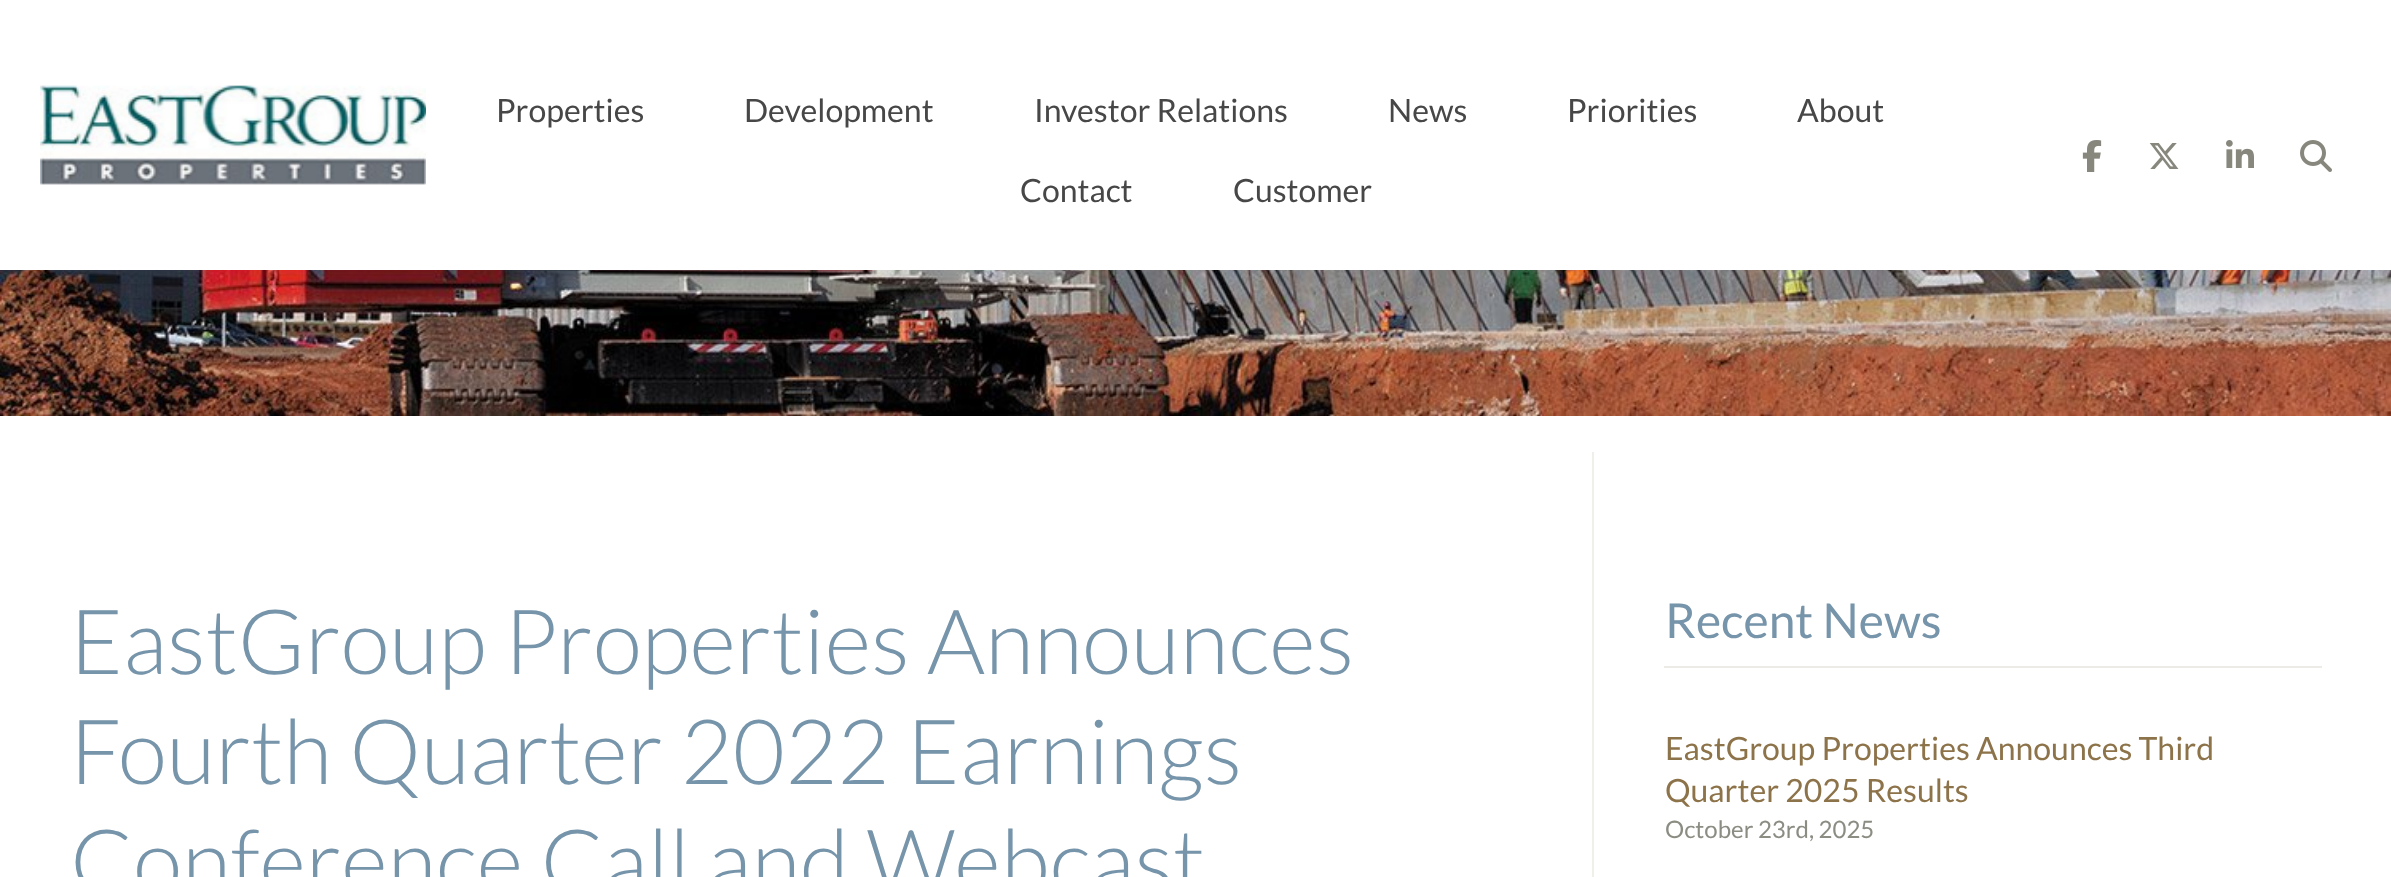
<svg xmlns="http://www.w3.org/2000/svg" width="2391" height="877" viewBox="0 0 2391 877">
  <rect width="100%" height="100%" fill="rgb(255,255,255)"/>
  <image x="40" y="85" width="386" height="100" href="pic1.png"/>
  <g font-family="Lato" font-size="32" fill="rgb(71,71,71)">
    <text x="496" y="122">Properties</text>
    <text x="744" y="122">Development</text>
    <text x="1034" y="122">Investor Relations</text>
    <text x="1388" y="122">News</text>
    <text x="1567" y="122">Priorities</text>
    <text x="1797" y="122">About</text>
    <text x="1020" y="202">Contact</text>
    <text x="1233" y="202">Customer</text>
  </g>
  <image x="2082" y="140" width="20" height="32" href="pic2.png"/>
  <image x="2149" y="143" width="30" height="26" href="pic3.png"/>
  <image x="2226" y="140" width="28" height="28" href="pic4.png"/>
  <image x="2300" y="140" width="32" height="32" href="pic5.png"/>
  <image x="0" y="270" width="2391" height="146" href="pic6.png"/>
  <rect x="1592" y="452" width="2" height="425" fill="rgb(239,240,234)"/>
  <g font-family="Lato" font-size="90" font-weight="300" fill="rgb(118,148,170)">
    <text>
      <tspan x="70" y="674">EastGroup Properties Announces</tspan>
      <tspan x="70" y="784">Fourth Quarter 2022 Earnings</tspan>
      <tspan x="70" y="894">Conference Call and Webcast</tspan>
    </text>
  </g>
  <rect x="1664" y="666" width="658" height="2" fill="rgb(237,235,229)"/>
  <text x="1665" y="638" font-family="Lato" font-size="48" fill="rgb(118,148,170)">Recent News</text>
  <g font-family="Lato" font-size="32" fill="rgb(141,115,74)">
    <text>
      <tspan x="1665" y="760">EastGroup Properties Announces Third</tspan>
      <tspan x="1665" y="802">Quarter 2025 Results</tspan>
    </text>
  </g>
  <text x="1665" y="838" font-family="Lato" font-size="24" fill="rgb(139,141,131)">October 23rd, 2025</text>
</svg>
